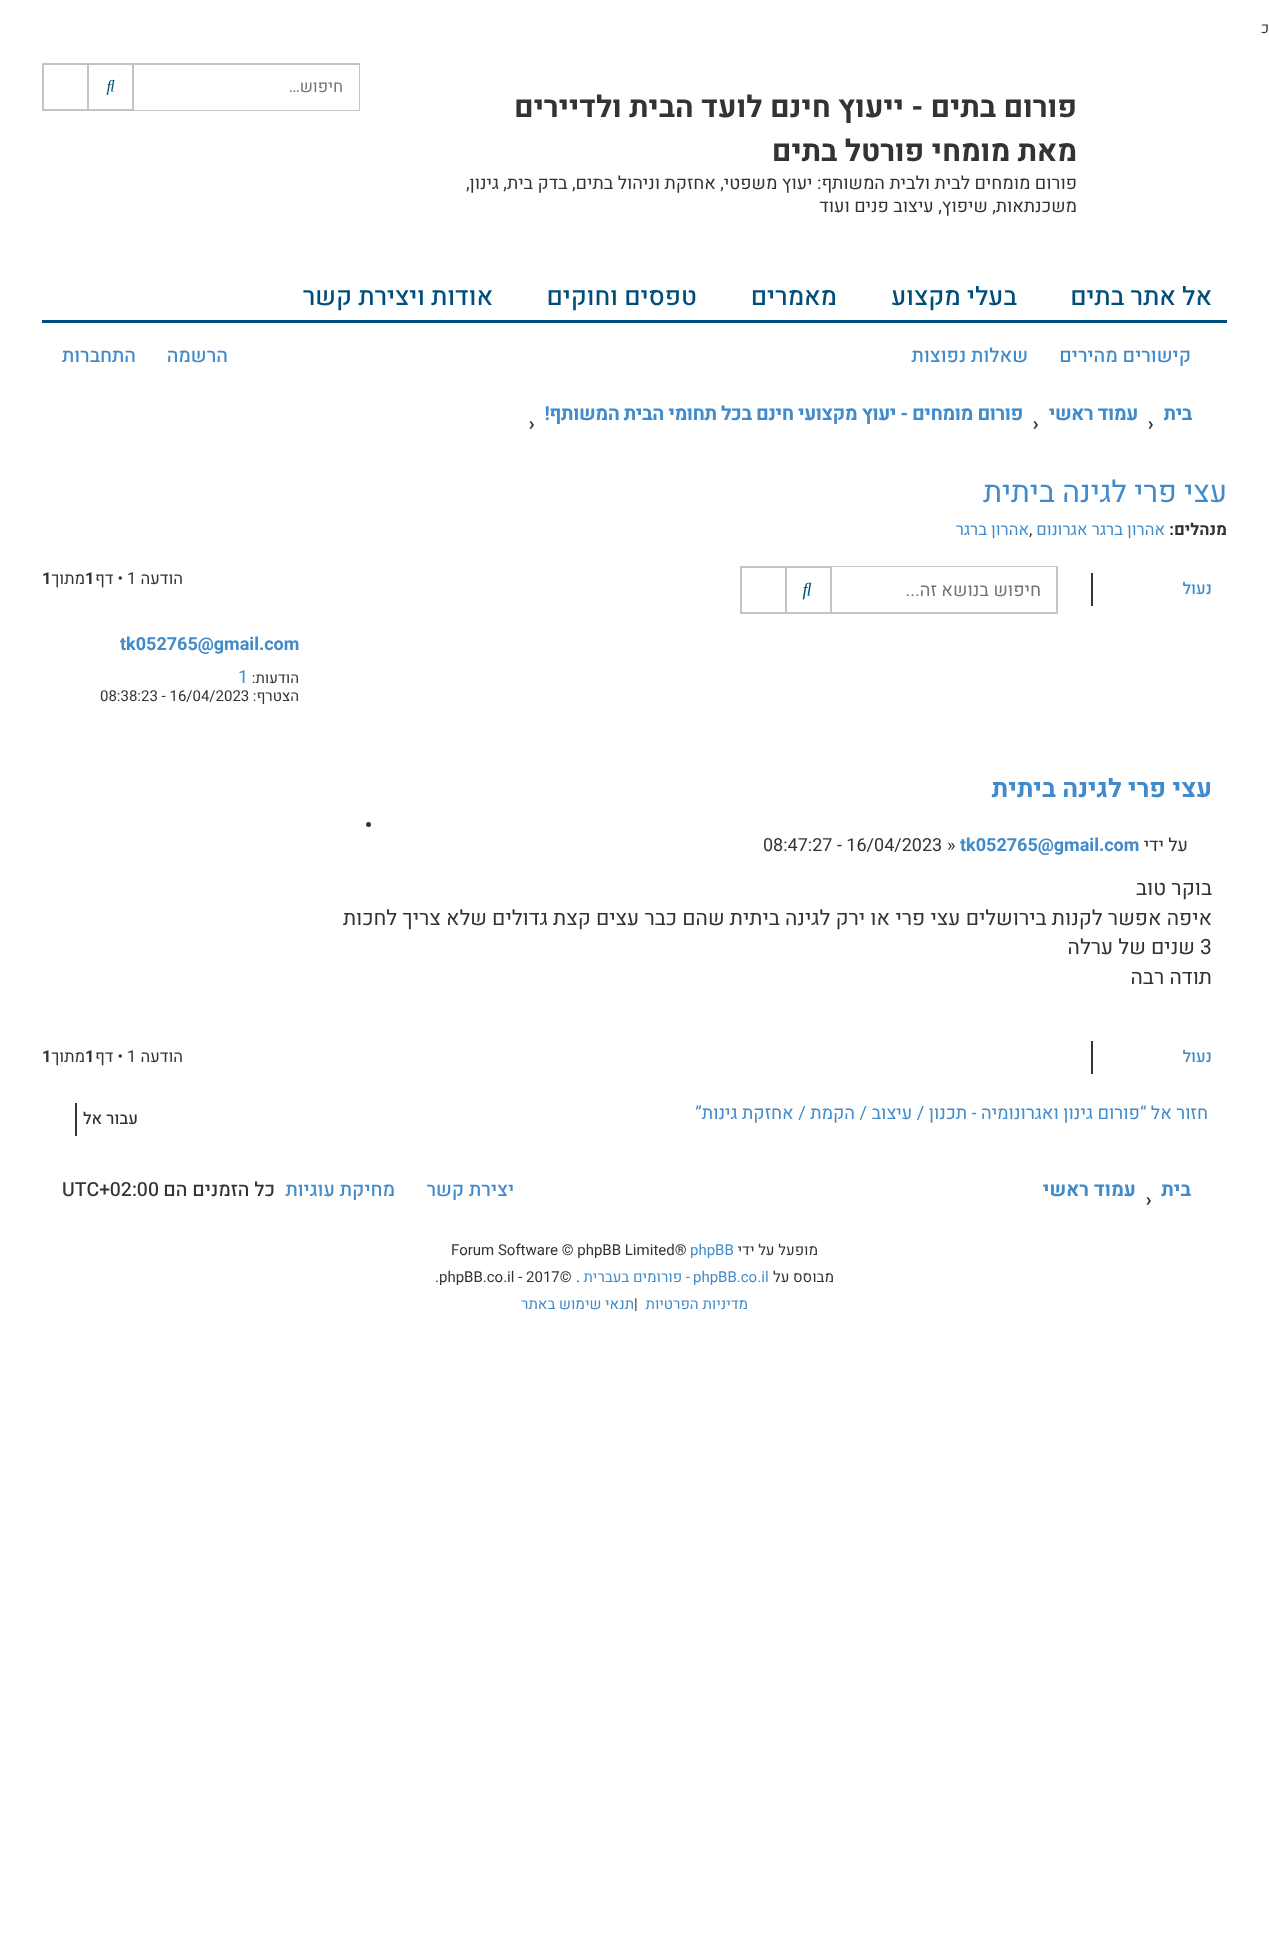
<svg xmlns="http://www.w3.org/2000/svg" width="1269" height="1938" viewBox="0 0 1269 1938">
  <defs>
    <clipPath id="clip1"><rect x="1164" y="393" width="48" height="42"/></clipPath>
  </defs>
  <rect width="100%" height="100%" fill="rgb(255,255,255)"/>
  <text x="1269" y="33" font-family="Heebo" font-size="15" direction="rtl" fill="rgb(51,51,51)">כ</text>
  <rect x="43" y="64" width="316" height="46" fill="none" stroke="rgb(199,195,191)" stroke-width="2"/>
  <rect x="134" y="65" width="225" height="45" fill="rgb(255,255,255)"/>
  <text x="343" y="92" font-family="Heebo" font-size="16.5" direction="rtl" fill="rgb(117,117,117)">חיפוש…</text>
  <rect x="132" y="65" width="2" height="45" fill="rgb(199,195,191)"/>
  <image x="106" y="79" width="9" height="16" href="pic1.png"/>
  <rect x="87" y="65" width="2" height="45" fill="rgb(199,195,191)"/>
  <g font-family="Heebo" font-size="30" font-weight="bold" direction="rtl" fill="rgb(51,51,51)">
    <text>
      <tspan x="1077" y="117">פורום בתים - ייעוץ חינם לועד הבית ולדיירים</tspan>
      <tspan x="1077" y="161">מאת מומחי פורטל בתים</tspan>
    </text>
  </g>
  <g font-family="Heebo" font-size="18" direction="rtl" fill="rgb(51,51,51)">
    <text>
      <tspan x="1077" y="189">פורום מומחים לבית ולבית המשותף: יעוץ משפטי, אחזקת וניהול בתים, בדק בית, גינון,</tspan>
      <tspan x="1077" y="212">משכנתאות, שיפוץ, עיצוב פנים ועוד</tspan>
    </text>
  </g>
  <rect x="42" y="320" width="1185" height="3" fill="rgb(0,79,123)"/>
  <g font-family="Heebo" font-size="25.5" font-weight="500" direction="rtl" fill="rgb(0,79,123)">
    <text x="1212" y="305">אל אתר בתים</text>
    <text x="1017" y="305">בעלי מקצוע</text>
    <text x="837" y="305">מאמרים</text>
    <text x="697" y="305">טפסים וחוקים</text>
    <text x="493" y="305">אודות ויצירת קשר</text>
  </g>
  <g font-family="Heebo" font-size="19.5" font-weight="500" direction="rtl" fill="rgb(66,139,202)">
    <text x="1191" y="362">קישורים מהירים</text>
    <text x="1028" y="362">שאלות נפוצות</text>
    <text x="228" y="362">הרשמה</text>
    <text x="136" y="362">התחברות</text>
  </g>
  <g clip-path="url(#clip1)">
    <text x="1192" y="420" font-family="Heebo" font-size="19.5" font-weight="bold" letter-spacing="-0.45" direction="rtl" fill="rgb(66,139,202)">בית</text>
  </g>
  <text x="1138" y="420" font-family="Heebo" font-size="19.5" font-weight="bold" letter-spacing="-0.45" direction="rtl" fill="rgb(66,139,202)">עמוד ראשי</text>
  <text x="1154" y="420" transform="rotate(180 1154 420)" font-family="Heebo" font-size="19.5" font-weight="bold" fill="rgb(51,51,51)">‹</text>
  <text x="1023" y="420" font-family="Heebo" font-size="19.5" font-weight="bold" letter-spacing="-0.45" direction="rtl" fill="rgb(66,139,202)">פורום מומחים - יעוץ מקצועי חינם בכל תחומי הבית המשותף!</text>
  <g font-family="Heebo" font-size="19.5" font-weight="bold" fill="rgb(51,51,51)">
    <text x="1039" y="420" transform="rotate(180 1039 420)">‹</text>
    <text x="535" y="420" transform="rotate(180 535 420)">‹</text>
  </g>
  <text x="1227" y="502" font-family="Heebo" font-size="30" direction="rtl" fill="rgb(66,139,202)">עצי פרי לגינה ביתית</text>
  <text x="1227" y="535" font-family="Heebo" font-size="16.5" font-weight="bold" direction="rtl" fill="rgb(51,51,51)">מנהלים:</text>
  <text x="1165" y="535" font-family="Heebo" font-size="16.5" direction="rtl" fill="rgb(66,139,202)">אהרון ברגר אגרונום</text>
  <text x="1029" y="535" font-family="Heebo" font-size="16.5" fill="rgb(51,51,51)">,</text>
  <text x="1029" y="535" font-family="Heebo" font-size="16.5" direction="rtl" fill="rgb(66,139,202)">אהרון ברגר</text>
  <text x="1212" y="594" font-family="Heebo" font-size="16.5" font-weight="500" direction="rtl" fill="rgb(66,139,202)">נעול</text>
  <rect x="1091" y="573" width="2" height="33" fill="rgb(51,51,51)"/>
  <rect x="741" y="567" width="316" height="46" fill="none" stroke="rgb(199,195,191)" stroke-width="2"/>
  <rect x="832" y="567" width="224" height="1" fill="rgb(255,255,255)"/>
  <text x="1041" y="596" font-family="Heebo" font-size="18.15" direction="rtl" fill="rgb(117,117,117)">חיפוש בנושא זה...</text>
  <rect x="830" y="567" width="2" height="45" fill="rgb(199,195,191)"/>
  <image x="802" y="582" width="10" height="18" href="pic2.png"/>
  <rect x="785" y="567" width="2" height="45" fill="rgb(199,195,191)"/>
  <text x="183" y="584" font-family="Heebo" font-size="16.5" direction="rtl" fill="rgb(51,51,51)">הודעה</text>
  <text x="127" y="584" font-family="Heebo" font-size="16.5" fill="rgb(51,51,51)">1</text>
  <text x="123" y="584" font-family="Heebo" font-size="16.5" direction="rtl" fill="rgb(51,51,51)">• דף</text>
  <text x="85" y="584" font-family="Heebo" font-size="16.5" font-weight="bold" fill="rgb(51,51,51)">1</text>
  <text x="85" y="584" font-family="Heebo" font-size="16.5" direction="rtl" fill="rgb(51,51,51)">מתוך</text>
  <text x="42" y="584" font-family="Heebo" font-size="16.5" font-weight="bold" fill="rgb(51,51,51)">1</text>
  <text x="120" y="650" font-family="Heebo" font-size="18" font-weight="bold" fill="rgb(66,139,202)">tk052765@gmail.com</text>
  <text x="299" y="683" font-family="Heebo" font-size="15" direction="rtl" fill="rgb(51,51,51)">הודעות:</text>
  <text x="238" y="683" font-family="Heebo" font-size="18" fill="rgb(66,139,202)">1</text>
  <text x="299" y="701" font-family="Heebo" font-size="15" direction="rtl" fill="rgb(51,51,51)">הצטרף:</text>
  <text x="100" y="701" font-family="Heebo" font-size="15" fill="rgb(51,51,51)">08:38:23 - 16/04/2023</text>
  <text x="1212" y="797" font-family="Heebo" font-size="25.5" font-weight="bold" direction="rtl" fill="rgb(66,139,202)">עצי פרי לגינה ביתית</text>
  <circle cx="368.5" cy="824.5" r="2.5" fill="rgb(51,51,51)"/>
  <text x="1188" y="851" font-family="Heebo" font-size="18" direction="rtl" fill="rgb(51,51,51)">על ידי</text>
  <text x="960" y="851" font-family="Heebo" font-size="18" font-weight="bold" fill="rgb(66,139,202)">tk052765@gmail.com</text>
  <g font-family="Heebo" font-size="18" fill="rgb(51,51,51)">
    <text x="947" y="851">»</text>
    <text x="763" y="851">08:47:27 - 16/04/2023</text>
  </g>
  <g font-family="Heebo" font-size="21" direction="rtl" fill="rgb(51,51,51)">
    <text>
      <tspan x="1212" y="895">בוקר טוב</tspan>
      <tspan x="1212" y="925">איפה אפשר לקנות בירושלים עצי פרי</tspan>
    </text>
    <text x="890" y="925">או ירק לגינה ביתית שהם כבר עצים קצת גדולים שלא צריך לחכות</text>
  </g>
  <text x="1200" y="954" font-family="Heebo" font-size="21" fill="rgb(51,51,51)">3</text>
  <g font-family="Heebo" font-size="21" direction="rtl" fill="rgb(51,51,51)">
    <text x="1195" y="954">שנים של ערלה</text>
    <text x="1212" y="984">תודה רבה</text>
  </g>
  <text x="1212" y="1062" font-family="Heebo" font-size="16.5" font-weight="500" direction="rtl" fill="rgb(66,139,202)">נעול</text>
  <rect x="1091" y="1041" width="2" height="33" fill="rgb(51,51,51)"/>
  <text x="183" y="1062" font-family="Heebo" font-size="16.5" direction="rtl" fill="rgb(51,51,51)">הודעה</text>
  <text x="127" y="1062" font-family="Heebo" font-size="16.5" fill="rgb(51,51,51)">1</text>
  <text x="123" y="1062" font-family="Heebo" font-size="16.5" direction="rtl" fill="rgb(51,51,51)">• דף</text>
  <text x="85" y="1062" font-family="Heebo" font-size="16.5" font-weight="bold" fill="rgb(51,51,51)">1</text>
  <text x="85" y="1062" font-family="Heebo" font-size="16.5" direction="rtl" fill="rgb(51,51,51)">מתוך</text>
  <text x="42" y="1062" font-family="Heebo" font-size="16.5" font-weight="bold" fill="rgb(51,51,51)">1</text>
  <text x="1208" y="1119" font-family="Heebo" font-size="18.15" direction="rtl" fill="rgb(66,139,202)">חזור אל “פורום גינון ואגרונומיה - תכנון / עיצוב / הקמת / אחזקת גינות”</text>
  <text x="138" y="1124" font-family="Heebo" font-size="16.5" font-weight="500" direction="rtl" fill="rgb(51,51,51)">עבור אל</text>
  <rect x="75" y="1103" width="2" height="33" fill="rgb(51,51,51)"/>
  <g font-family="Heebo" font-size="19.5" font-weight="bold" direction="rtl" fill="rgb(66,139,202)">
    <text x="1191" y="1196">בית</text>
    <text x="1136" y="1196">עמוד ראשי</text>
  </g>
  <text x="1152" y="1196" transform="rotate(180 1152 1196)" font-family="Heebo" font-size="19.5" font-weight="bold" fill="rgb(51,51,51)">‹</text>
  <g font-family="Heebo" font-size="19.5" font-weight="500" direction="rtl" fill="rgb(66,139,202)">
    <text x="514" y="1196">יצירת קשר</text>
    <text x="395" y="1196">מחיקת עוגיות</text>
  </g>
  <text x="275" y="1196" font-family="Heebo" font-size="19.5" font-weight="500" direction="rtl" fill="rgb(51,51,51)">כל הזמנים הם</text>
  <text x="62" y="1196" font-family="Heebo" font-size="19.5" font-weight="500" fill="rgb(51,51,51)">UTC+02:00</text>
  <text x="818" y="1255" font-family="Heebo" font-size="15" direction="rtl" fill="rgb(51,51,51)">מופעל על ידי</text>
  <text x="690" y="1255" font-family="Heebo" font-size="15" fill="rgb(66,139,202)">phpBB</text>
  <text x="451" y="1255" font-family="Heebo" font-size="15" fill="rgb(51,51,51)">Forum Software © phpBB Limited®</text>
  <text x="834" y="1282" font-family="Heebo" font-size="15" direction="rtl" fill="rgb(51,51,51)">מבוסס על</text>
  <text x="693" y="1282" font-family="Heebo" font-size="15" fill="rgb(66,139,202)">phpBB.co.il</text>
  <text x="690" y="1282" font-family="Heebo" font-size="15" direction="rtl" fill="rgb(66,139,202)">- פורומים בעברית</text>
  <g font-family="Heebo" font-size="15" fill="rgb(51,51,51)">
    <text x="576" y="1282">.</text>
    <text x="435" y="1282">.phpBB.co.il - 2017©</text>
  </g>
  <text x="748" y="1309" font-family="Heebo" font-size="15" direction="rtl" fill="rgb(66,139,202)">מדיניות הפרטיות</text>
  <text x="634" y="1309" font-family="Heebo" font-size="15" fill="rgb(51,51,51)">|</text>
  <text x="634" y="1309" font-family="Heebo" font-size="15" direction="rtl" fill="rgb(66,139,202)">תנאי שימוש באתר</text>
</svg>
